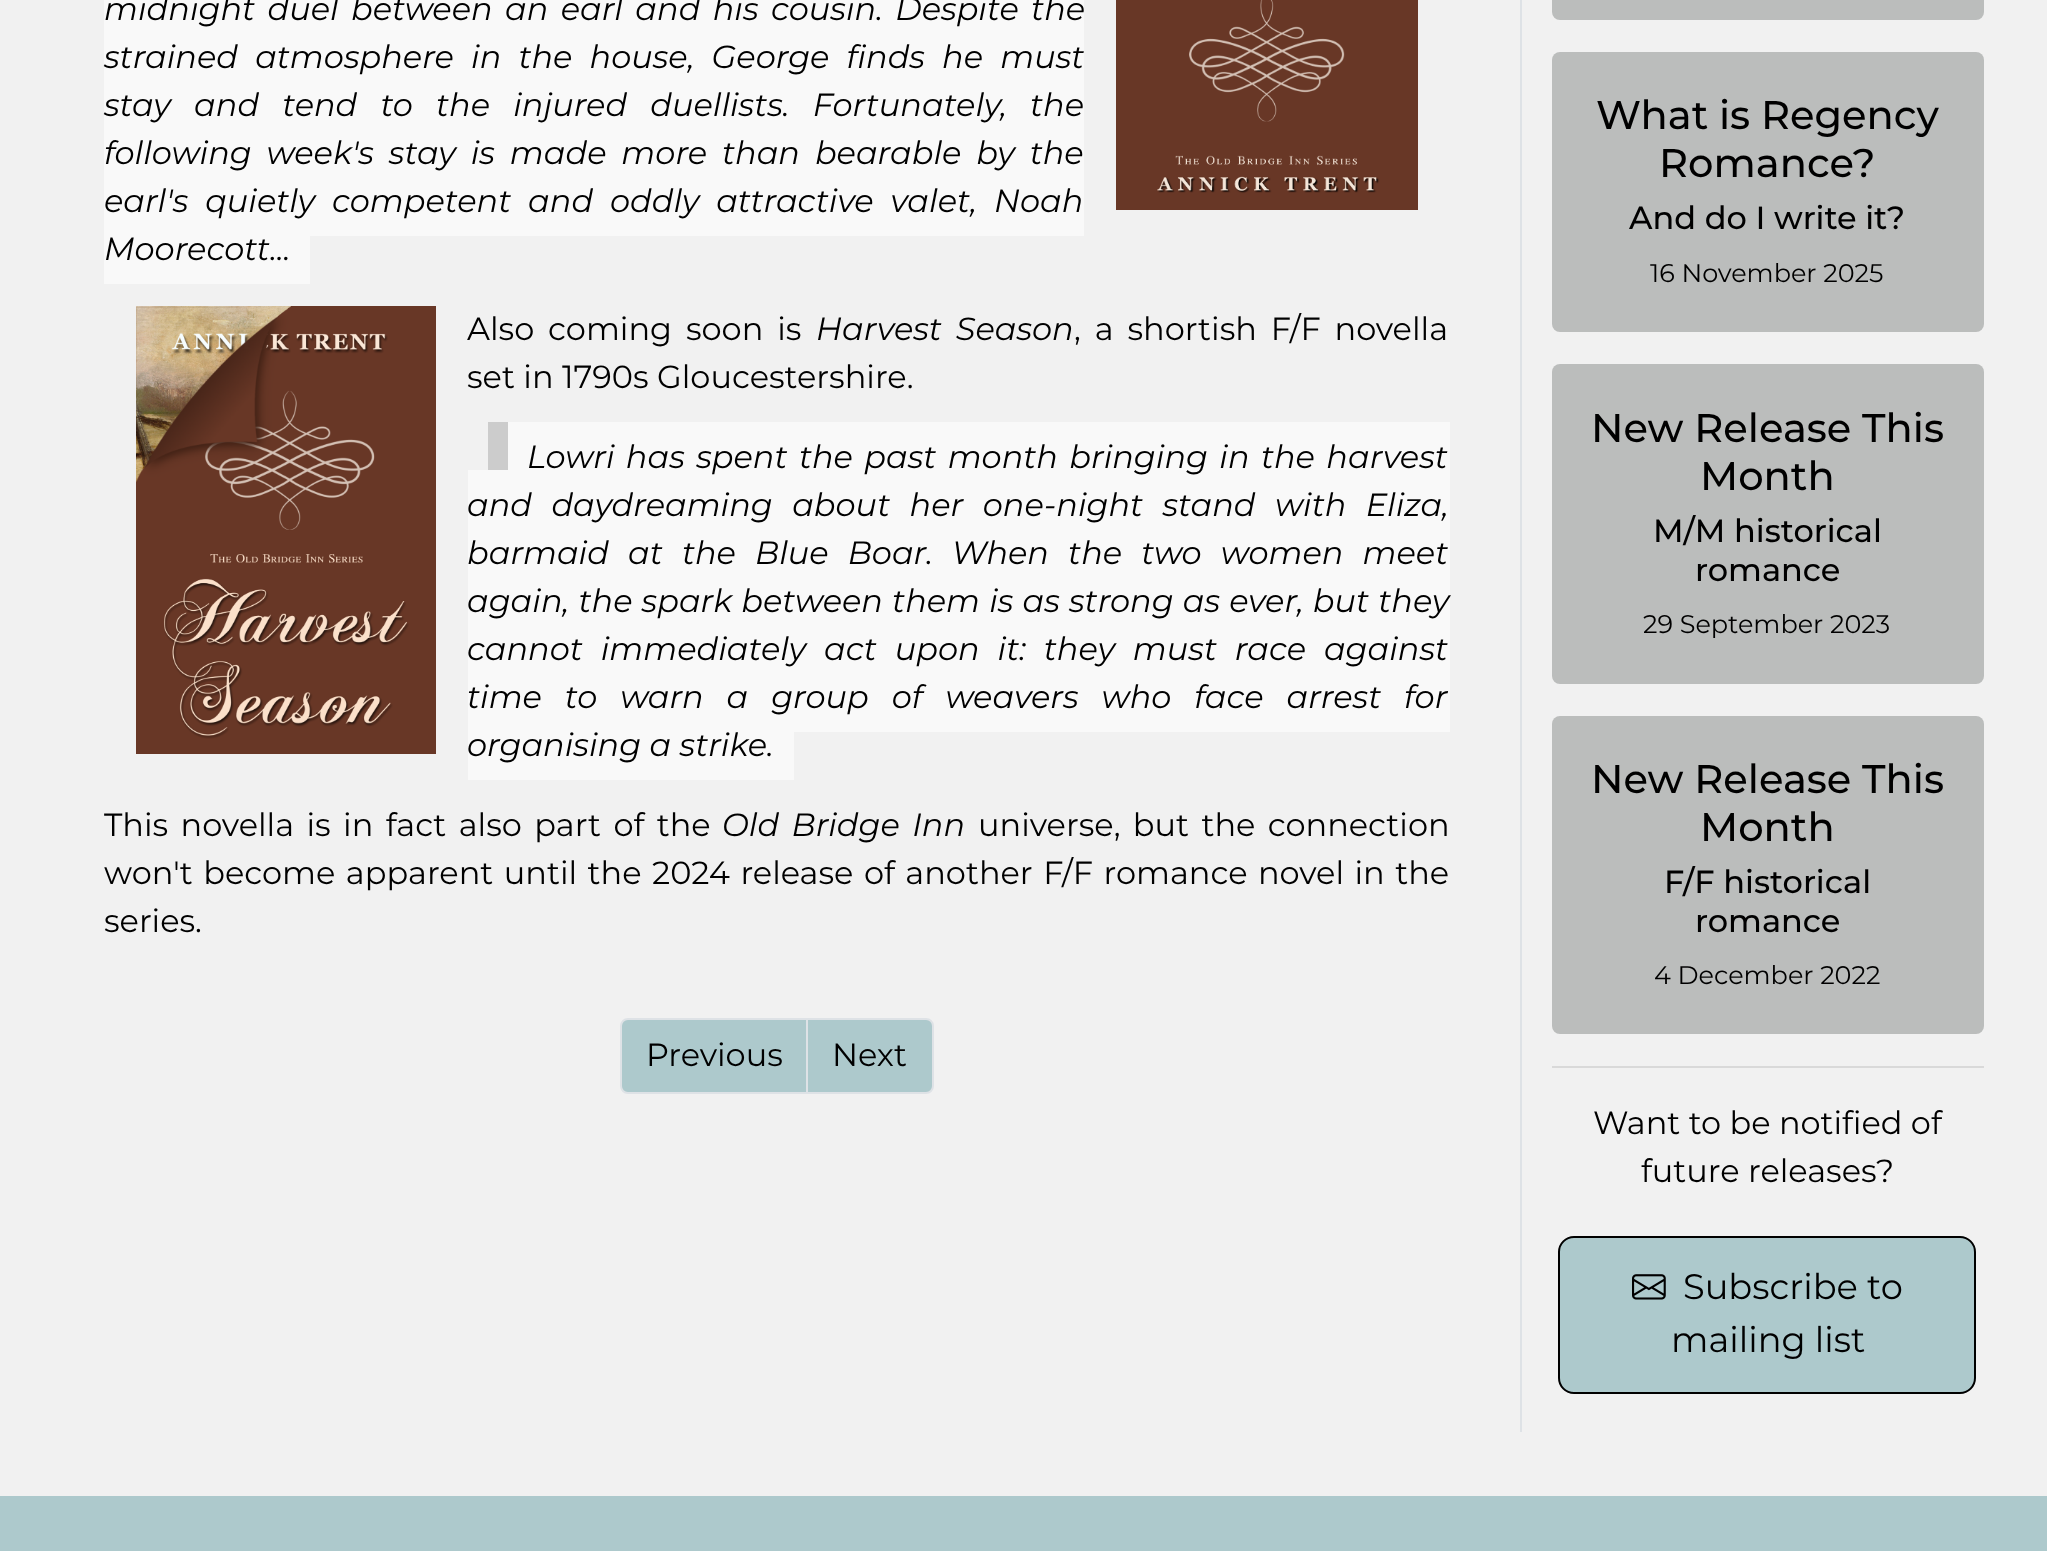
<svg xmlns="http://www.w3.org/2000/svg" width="2047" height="1551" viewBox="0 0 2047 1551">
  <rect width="100%" height="100%" fill="rgb(241,241,241)"/>
  <rect x="104" y="0" width="980" height="236" fill="rgb(249,249,249)"/>
  <g font-family="Montserrat" font-size="32" font-style="italic" fill="rgb(0,0,0)">
    <text>
      <tspan x="104" y="20" word-spacing="4">midnight duel between an earl and his cousin. Despite the</tspan>
      <tspan x="104" y="68" word-spacing="8.75">strained atmosphere in the house, George finds he must</tspan>
      <tspan x="104" y="116" word-spacing="14.75">stay and tend to the injured duellists. Fortunately, the</tspan>
      <tspan x="104" y="164" word-spacing="6.5">following week's stay is made more than bearable by the</tspan>
      <tspan x="104" y="212" word-spacing="8.5">earl's quietly competent and oddly attractive valet, Noah</tspan>
    </text>
  </g>
  <rect x="104" y="236" width="206" height="48" fill="rgb(249,249,249)"/>
  <text x="104" y="260" font-family="Montserrat" font-size="32" font-style="italic" fill="rgb(0,0,0)">Moorecott...</text>
  <image x="1116" y="0" width="302" height="210" href="pic1.png"/>
  <image x="136" y="306" width="300" height="448" href="pic2.png"/>
  <text x="467" y="340" word-spacing="5.5" font-family="Montserrat" font-size="32" fill="rgb(0,0,0)">Also coming soon is</text>
  <text x="816" y="340" word-spacing="5.5" font-family="Montserrat" font-size="32" font-style="italic" fill="rgb(0,0,0)">Harvest Season</text>
  <g font-family="Montserrat" font-size="32" fill="rgb(0,0,0)">
    <text x="1074" y="340" word-spacing="5.5">, a shortish F/F novella</text>
    <text x="467" y="388">set in 1790s Gloucestershire.</text>
  </g>
  <rect x="508" y="422" width="942" height="48" fill="rgb(249,249,249)"/>
  <rect x="468" y="470" width="982" height="262" fill="rgb(249,249,249)"/>
  <text x="527" y="468" word-spacing="3" font-family="Montserrat" font-size="32" font-style="italic" fill="rgb(0,0,0)">Lowri has spent the past month bringing in the harvest</text>
  <rect x="488" y="422" width="20" height="48" fill="rgb(204,204,204)"/>
  <g font-family="Montserrat" font-size="32" font-style="italic" fill="rgb(0,0,0)">
    <text>
      <tspan x="467" y="516" word-spacing="11">and daydreaming about her one-night stand with Eliza,</tspan>
      <tspan x="467" y="564" word-spacing="10.75">barmaid at the Blue Boar. When the two women meet</tspan>
      <tspan x="467" y="612" word-spacing="0.75">again, the spark between them is as strong as ever, but they</tspan>
      <tspan x="467" y="660" word-spacing="9.5">cannot immediately act upon it: they must race against</tspan>
      <tspan x="467" y="708" word-spacing="14.5">time to warn a group of weavers who face arrest for</tspan>
    </text>
  </g>
  <rect x="468" y="732" width="326" height="48" fill="rgb(249,249,249)"/>
  <text x="467" y="756" font-family="Montserrat" font-size="32" font-style="italic" fill="rgb(0,0,0)">organising a strike.</text>
  <text x="104" y="836" word-spacing="4" font-family="Montserrat" font-size="32" fill="rgb(0,0,0)">This novella is in fact also part of the</text>
  <text x="722" y="836" word-spacing="4" font-family="Montserrat" font-size="32" font-style="italic" fill="rgb(0,0,0)">Old Bridge Inn</text>
  <g font-family="Montserrat" font-size="32" fill="rgb(0,0,0)">
    <text x="978" y="836" word-spacing="4">universe, but the connection</text>
    <text>
      <tspan x="104" y="884" word-spacing="2.1">won't become apparent until the 2024 release of another F/F romance novel in the</tspan>
      <tspan x="104" y="932">series.</tspan>
    </text>
  </g>
  <path d="M628 1019H807V1093H628C624 1093 621 1090 621 1086V1026C621 1022 624 1019 628 1019Z" fill="rgb(173,201,204)" stroke="rgb(222,226,230)" stroke-width="2"/>
  <text x="646" y="1066" font-family="Montserrat" font-size="32" fill="rgb(0,0,0)">Previous</text>
  <path d="M807 1019H926C930 1019 933 1022 933 1026V1086C933 1090 930 1093 926 1093H807Z" fill="rgb(173,201,204)" stroke="rgb(222,226,230)" stroke-width="2"/>
  <text x="832" y="1066" font-family="Montserrat" font-size="32" fill="rgb(0,0,0)">Next</text>
  <rect x="1520" y="0" width="2" height="1432" fill="rgb(222,226,230)"/>
  <rect x="1552" y="-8" width="432" height="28" rx="8" fill="rgb(187,189,188)"/>
  <rect x="1552" y="52" width="432" height="280" rx="8" fill="rgb(187,189,188)"/>
  <g font-family="Montserrat" font-size="40" font-weight="500" fill="rgb(0,0,0)">
    <text x="1596" y="129">What is Regency</text>
    <text x="1659" y="177">Romance?</text>
  </g>
  <text x="1629" y="229" font-family="Montserrat" font-size="32" font-weight="500" fill="rgb(0,0,0)">And do I write it?</text>
  <text x="1650" y="282" font-family="Montserrat" font-size="25.5" fill="rgb(0,0,0)">16 November 2025</text>
  <rect x="1552" y="364" width="432" height="320" rx="8" fill="rgb(187,189,188)"/>
  <g font-family="Montserrat" font-size="40" font-weight="500" fill="rgb(0,0,0)">
    <text x="1591" y="442">New Release This</text>
    <text x="1700" y="490">Month</text>
  </g>
  <g font-family="Montserrat" font-size="32" font-weight="500" fill="rgb(0,0,0)">
    <text x="1653" y="542">M/M historical</text>
    <text x="1695" y="581">romance</text>
  </g>
  <text x="1643" y="633" font-family="Montserrat" font-size="25.5" fill="rgb(0,0,0)">29 September 2023</text>
  <rect x="1552" y="716" width="432" height="318" rx="8" fill="rgb(187,189,188)"/>
  <g font-family="Montserrat" font-size="40" font-weight="500" fill="rgb(0,0,0)">
    <text x="1591" y="793">New Release This</text>
    <text x="1700" y="841">Month</text>
  </g>
  <g font-family="Montserrat" font-size="32" font-weight="500" fill="rgb(0,0,0)">
    <text x="1664" y="893">F/F historical</text>
    <text x="1695" y="932">romance</text>
  </g>
  <text x="1654" y="984" font-family="Montserrat" font-size="25.5" fill="rgb(0,0,0)">4 December 2022</text>
  <rect x="1552" y="1066" width="432" height="2" fill="rgb(217,217,217)"/>
  <g font-family="Montserrat" font-size="32" fill="rgb(0,0,0)">
    <text x="1593" y="1134">Want to be notified of</text>
    <text x="1641" y="1182">future releases?</text>
  </g>
  <rect x="1559" y="1237" width="416" height="156" rx="15" fill="rgb(173,201,204)" stroke="rgb(0,0,0)" stroke-width="2"/>
  <image x="1632" y="1274" width="34" height="26" href="pic3.png"/>
  <g font-family="Montserrat" font-size="35.25" fill="rgb(0,0,0)">
    <text x="1683" y="1299">Subscribe to</text>
    <text x="1671" y="1352">mailing list</text>
  </g>
  <rect x="0" y="1496" width="2047" height="55" fill="rgb(173,201,204)"/>
</svg>
